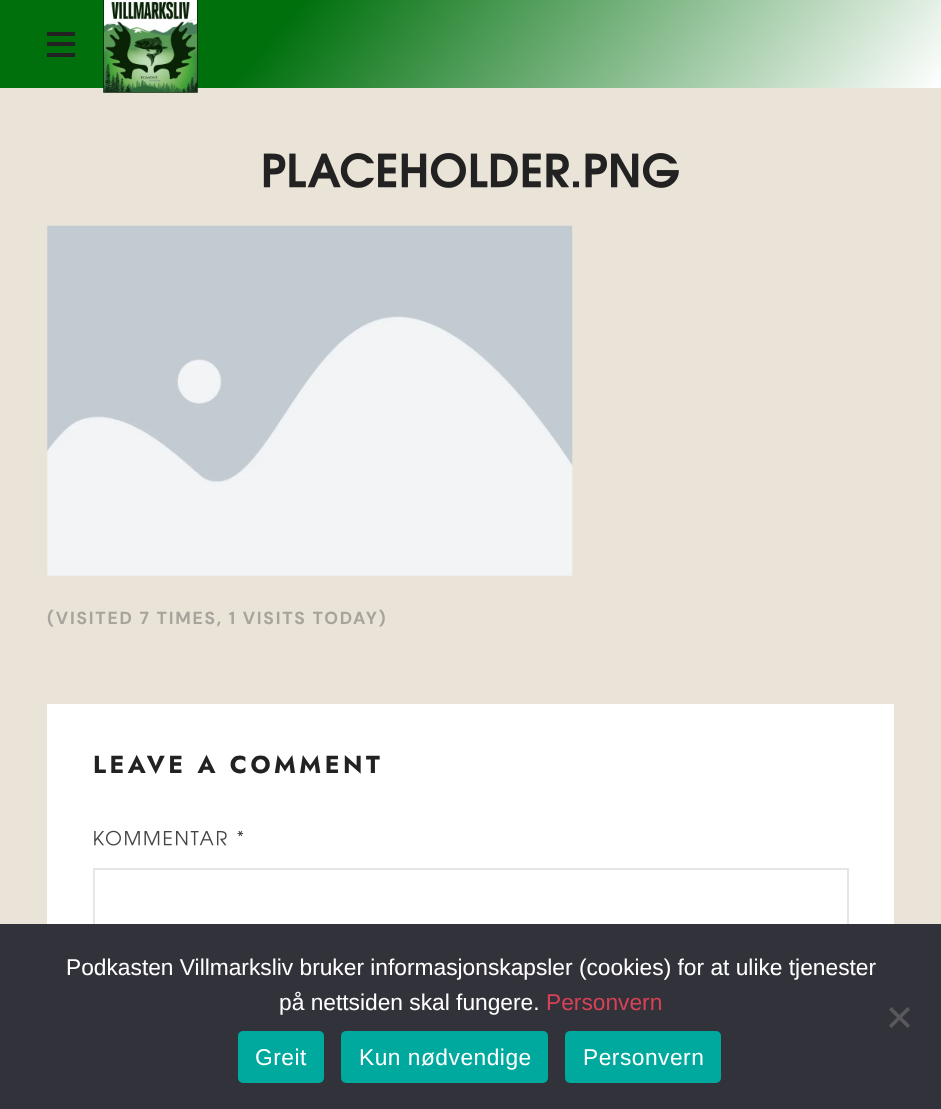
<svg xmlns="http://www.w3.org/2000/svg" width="941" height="1109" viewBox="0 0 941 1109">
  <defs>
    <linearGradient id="g1" gradientUnits="userSpaceOnUse" x1="173" y1="-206" x2="769" y2="294"><stop offset="0.3" stop-color="rgb(0,112,13)"/><stop offset="1" stop-color="rgb(255,255,255)"/></linearGradient>
  </defs>
  <rect width="100%" height="100%" fill="rgb(234,227,215)"/>
  <rect x="0" y="0" width="941" height="88" fill="url(#g1)"/>
  <rect x="47" y="42" width="28" height="4" fill="rgb(34,34,34)"/>
  <rect x="47" y="32" width="28" height="4" fill="rgb(34,34,34)"/>
  <rect x="47" y="53" width="28" height="4" fill="rgb(34,34,34)"/>
  <image x="103" y="0" width="95" height="93" href="pic1.png"/>
  <image x="263" y="153" width="416" height="35" href="pic2.png"/>
  <image x="47" y="225" width="526" height="351" href="pic3.png"/>
  <text x="47" y="624" font-family="DM Sans" font-size="17.5" font-weight="bold" letter-spacing="1.75" fill="rgb(168,163,156)">(VISITED 7 TIMES, 1 VISITS TODAY)</text>
  <rect x="47" y="704" width="847" height="220" fill="rgb(255,255,255)"/>
  <text x="93" y="773" font-family="Jost" font-size="24.5" font-weight="bold" letter-spacing="3.5" fill="rgb(34,34,34)">LEAVE A COMMENT</text>
  <image x="94" y="830" width="133" height="16" href="pic4.png"/>
  <image x="237" y="830" width="7" height="7" href="pic5.png"/>
  <rect x="94" y="869" width="754" height="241" fill="none" stroke="rgb(230,230,230)" stroke-width="2"/>
  <rect x="0" y="924" width="941" height="185" fill="rgb(50,50,58)"/>
  <g font-family="Liberation Sans" font-size="22.75" fill="rgb(255,255,255)">
    <text x="66" y="975">Podkasten Villmarksliv bruker informasjonskapsler (cookies) for at ulike tjenester</text>
    <text x="279" y="1010">på nettsiden skal fungere.</text>
  </g>
  <text x="546" y="1010" font-family="Liberation Sans" font-size="22.75" fill="rgb(216,65,86)">Personvern</text>
  <path d="M907.5 1007L910 1009.5L891.5 1028L889 1025.5Z" fill="rgb(89,89,93)"/>
  <path d="M889 1009.5L891.5 1007L910 1025.5L907.5 1028Z" fill="rgb(89,89,93)"/>
  <rect x="238" y="1031" width="86" height="52" rx="5" fill="rgb(0,169,157)"/>
  <text x="255" y="1065" font-family="Liberation Sans" font-size="22.75" letter-spacing="0.5" fill="rgb(255,255,255)">Greit</text>
  <rect x="341" y="1031" width="207" height="52" rx="5" fill="rgb(0,169,157)"/>
  <text x="359" y="1065" font-family="Liberation Sans" font-size="22.75" letter-spacing="0.5" fill="rgb(255,255,255)">Kun nødvendige</text>
  <rect x="565" y="1031" width="156" height="52" rx="5" fill="rgb(0,169,157)"/>
  <text x="583" y="1065" font-family="Liberation Sans" font-size="22.75" letter-spacing="0.5" fill="rgb(255,255,255)">Personvern</text>
</svg>
